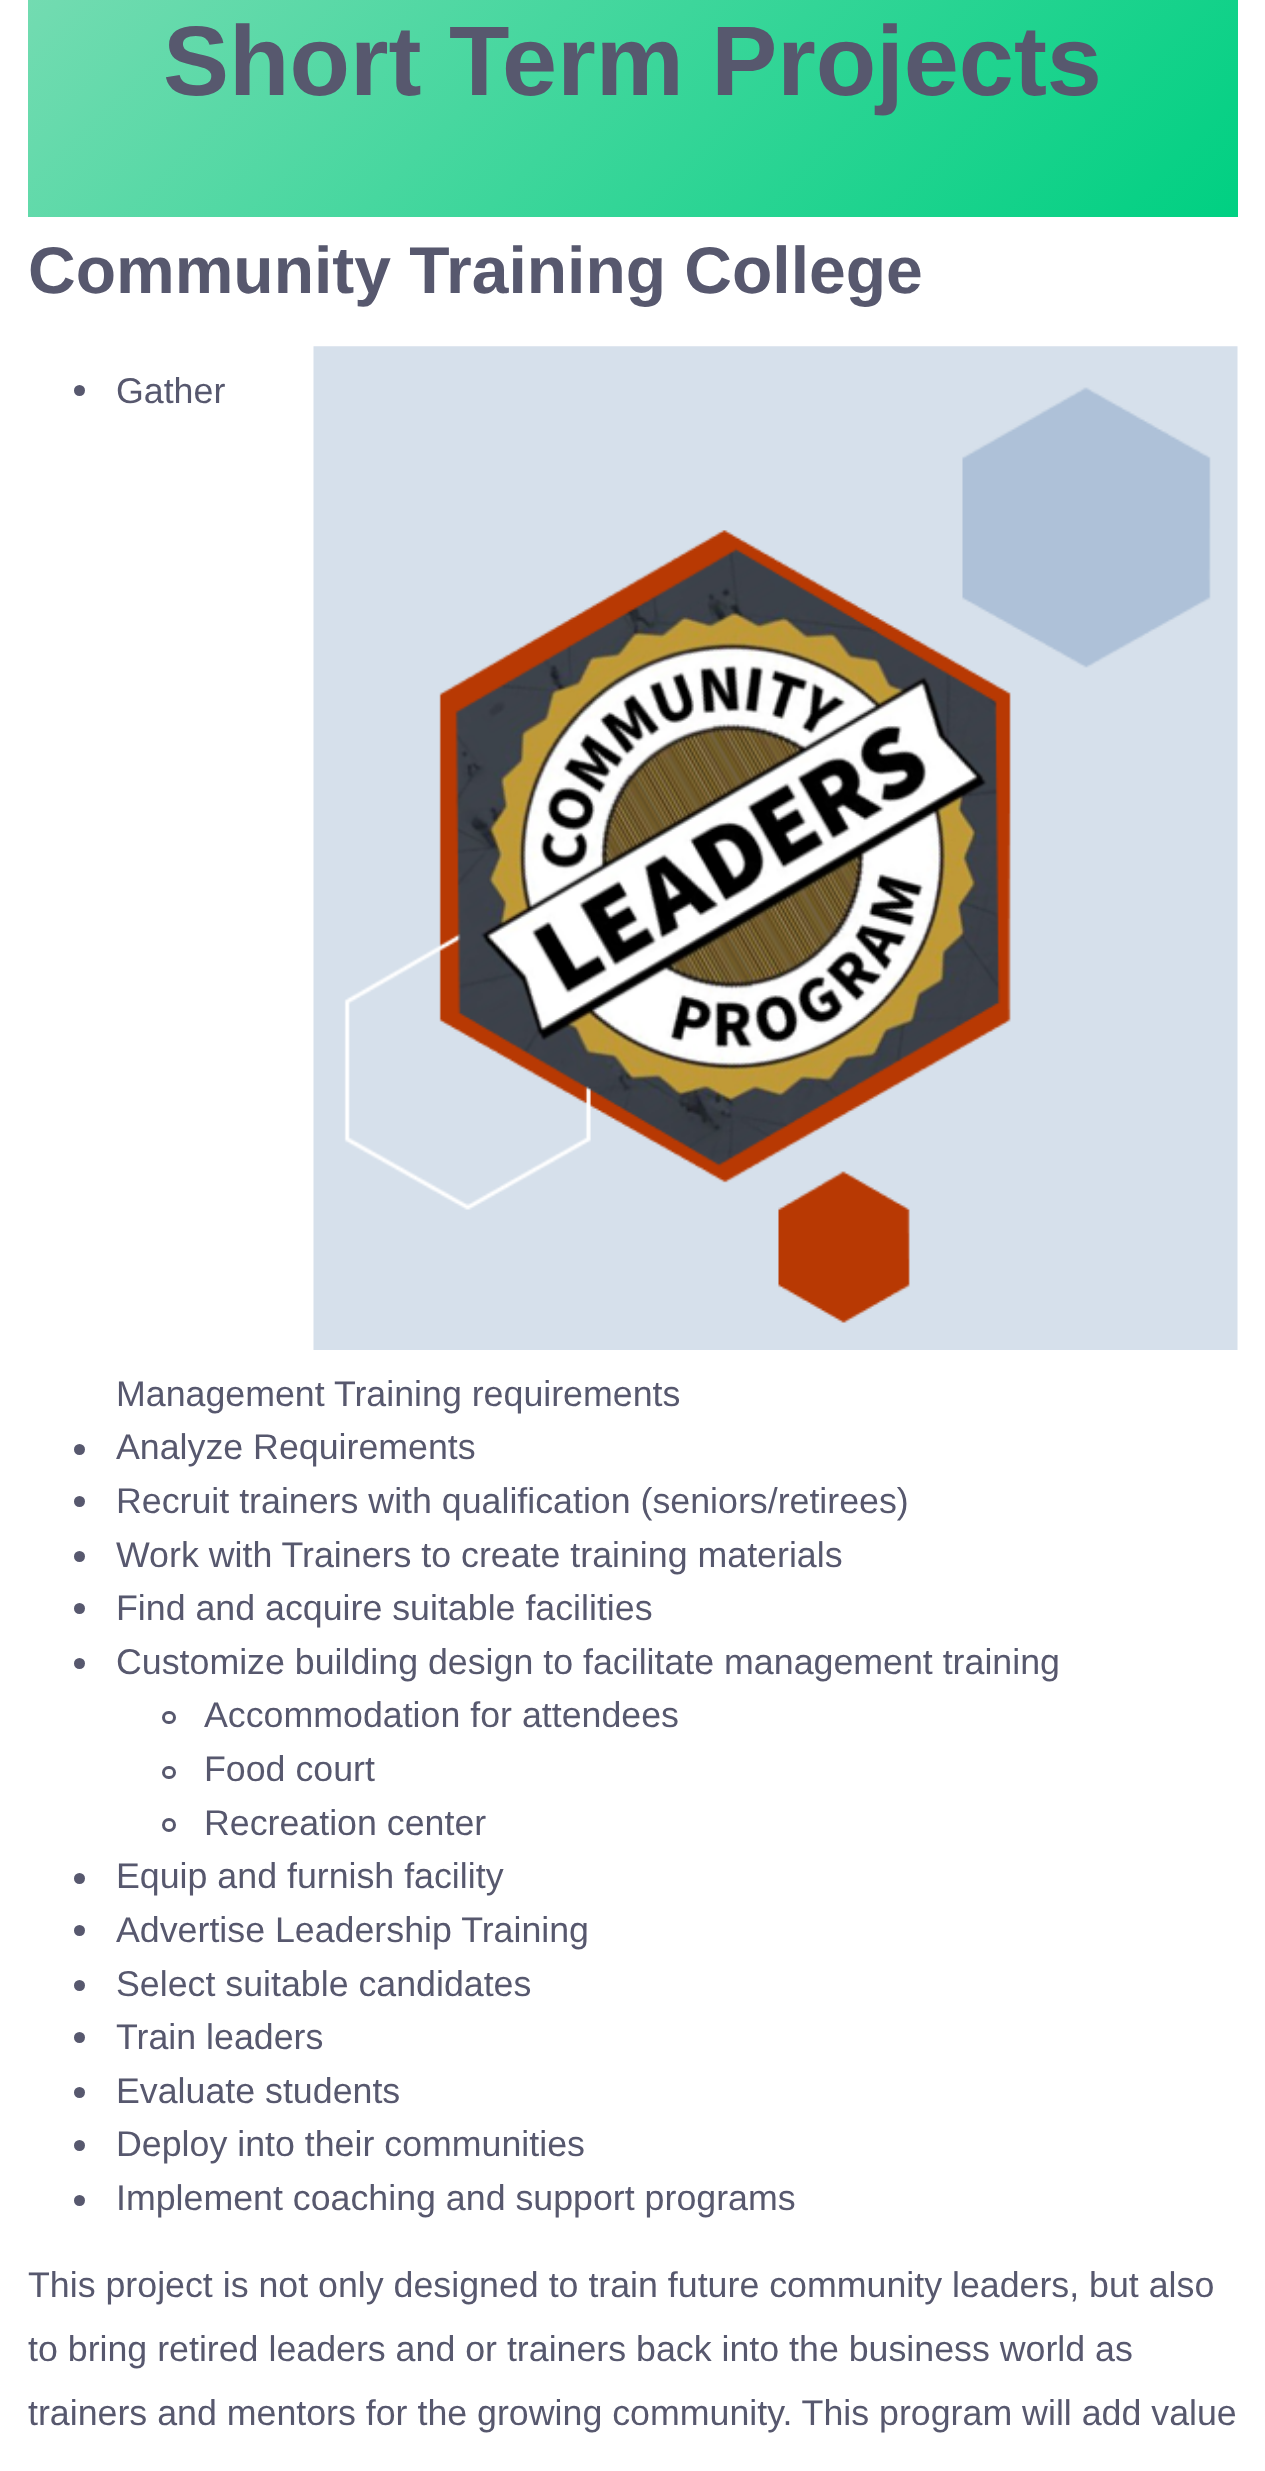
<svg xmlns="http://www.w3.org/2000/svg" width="1265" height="2471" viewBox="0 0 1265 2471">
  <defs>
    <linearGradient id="g1" gradientUnits="userSpaceOnUse" x1="253" y1="-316" x2="1012" y2="443"><stop offset="0" stop-color="rgb(122,220,180)"/><stop offset="1" stop-color="rgb(0,208,130)"/></linearGradient>
  </defs>
  <rect width="100%" height="100%" fill="rgb(255,255,255)"/>
  <rect x="28" y="0" width="1210" height="217" fill="url(#g1)"/>
  <text x="163" y="95" font-family="Liberation Sans" font-size="99" font-weight="bold" fill="rgb(87,88,110)">Short Term Projects</text>
  <text x="28" y="293" font-family="Liberation Sans" font-size="66" font-weight="bold" fill="rgb(87,88,110)">Community Training College</text>
  <image x="313" y="346" width="925" height="1004" href="pic1.png"/>
  <circle cx="79.5" cy="390.5" r="5.5" fill="rgb(87,88,110)"/>
  <g font-family="Liberation Sans" font-size="35.75" fill="rgb(87,88,110)">
    <text x="116" y="403">Gather</text>
    <text x="116" y="1406">Management Training requirements</text>
  </g>
  <circle cx="79.5" cy="1449.5" r="5.5" fill="rgb(87,88,110)"/>
  <text x="116" y="1459" font-family="Liberation Sans" font-size="35.75" fill="rgb(87,88,110)">Analyze Requirements</text>
  <circle cx="79.5" cy="1501.5" r="5.5" fill="rgb(87,88,110)"/>
  <text x="116" y="1513" font-family="Liberation Sans" font-size="35.75" fill="rgb(87,88,110)">Recruit trainers with qualification (seniors/retirees)</text>
  <circle cx="79.5" cy="1556.5" r="5.5" fill="rgb(87,88,110)"/>
  <text x="116" y="1567" font-family="Liberation Sans" font-size="35.75" fill="rgb(87,88,110)">Work with Trainers to create training materials</text>
  <circle cx="79.5" cy="1608.5" r="5.5" fill="rgb(87,88,110)"/>
  <text x="116" y="1620" font-family="Liberation Sans" font-size="35.75" fill="rgb(87,88,110)">Find and acquire suitable facilities</text>
  <circle cx="79.5" cy="1663.5" r="5.5" fill="rgb(87,88,110)"/>
  <text x="116" y="1674" font-family="Liberation Sans" font-size="35.75" fill="rgb(87,88,110)">Customize building design to facilitate management training</text>
  <rect x="163.5" y="1712.5" width="11" height="10" rx="5" fill="none" stroke="rgb(87,88,110)" stroke-width="3"/>
  <text x="204" y="1727" font-family="Liberation Sans" font-size="35.75" fill="rgb(87,88,110)">Accommodation for attendees</text>
  <rect x="163.5" y="1767.5" width="11" height="10" rx="5" fill="none" stroke="rgb(87,88,110)" stroke-width="3"/>
  <text x="204" y="1781" font-family="Liberation Sans" font-size="35.75" fill="rgb(87,88,110)">Food court</text>
  <circle cx="169" cy="1825" r="5.5" fill="none" stroke="rgb(87,88,110)" stroke-width="3"/>
  <text x="204" y="1835" font-family="Liberation Sans" font-size="35.75" fill="rgb(87,88,110)">Recreation center</text>
  <circle cx="79.5" cy="1878.5" r="5.5" fill="rgb(87,88,110)"/>
  <text x="116" y="1888" font-family="Liberation Sans" font-size="35.75" fill="rgb(87,88,110)">Equip and furnish facility</text>
  <circle cx="79.5" cy="1930.5" r="5.5" fill="rgb(87,88,110)"/>
  <text x="116" y="1942" font-family="Liberation Sans" font-size="35.75" fill="rgb(87,88,110)">Advertise Leadership Training</text>
  <circle cx="79.5" cy="1985.5" r="5.5" fill="rgb(87,88,110)"/>
  <text x="116" y="1996" font-family="Liberation Sans" font-size="35.75" fill="rgb(87,88,110)">Select suitable candidates</text>
  <circle cx="79.5" cy="2037.5" r="5.5" fill="rgb(87,88,110)"/>
  <text x="116" y="2049" font-family="Liberation Sans" font-size="35.75" fill="rgb(87,88,110)">Train leaders</text>
  <circle cx="79.5" cy="2092.5" r="5.5" fill="rgb(87,88,110)"/>
  <text x="116" y="2103" font-family="Liberation Sans" font-size="35.75" fill="rgb(87,88,110)">Evaluate students</text>
  <circle cx="79.5" cy="2145.5" r="5.5" fill="rgb(87,88,110)"/>
  <text x="116" y="2156" font-family="Liberation Sans" font-size="35.75" fill="rgb(87,88,110)">Deploy into their communities</text>
  <circle cx="79.5" cy="2200.5" r="5.5" fill="rgb(87,88,110)"/>
  <g font-family="Liberation Sans" font-size="35.75" fill="rgb(87,88,110)">
    <text x="116" y="2210">Implement coaching and support programs</text>
    <text>
      <tspan x="28" y="2297">This project is not only designed to train future community leaders, but also</tspan>
      <tspan x="28" y="2361">to bring retired leaders and or trainers back into the business world as</tspan>
      <tspan x="28" y="2425">trainers and mentors for the growing community. This program will add value</tspan>
    </text>
  </g>
</svg>
